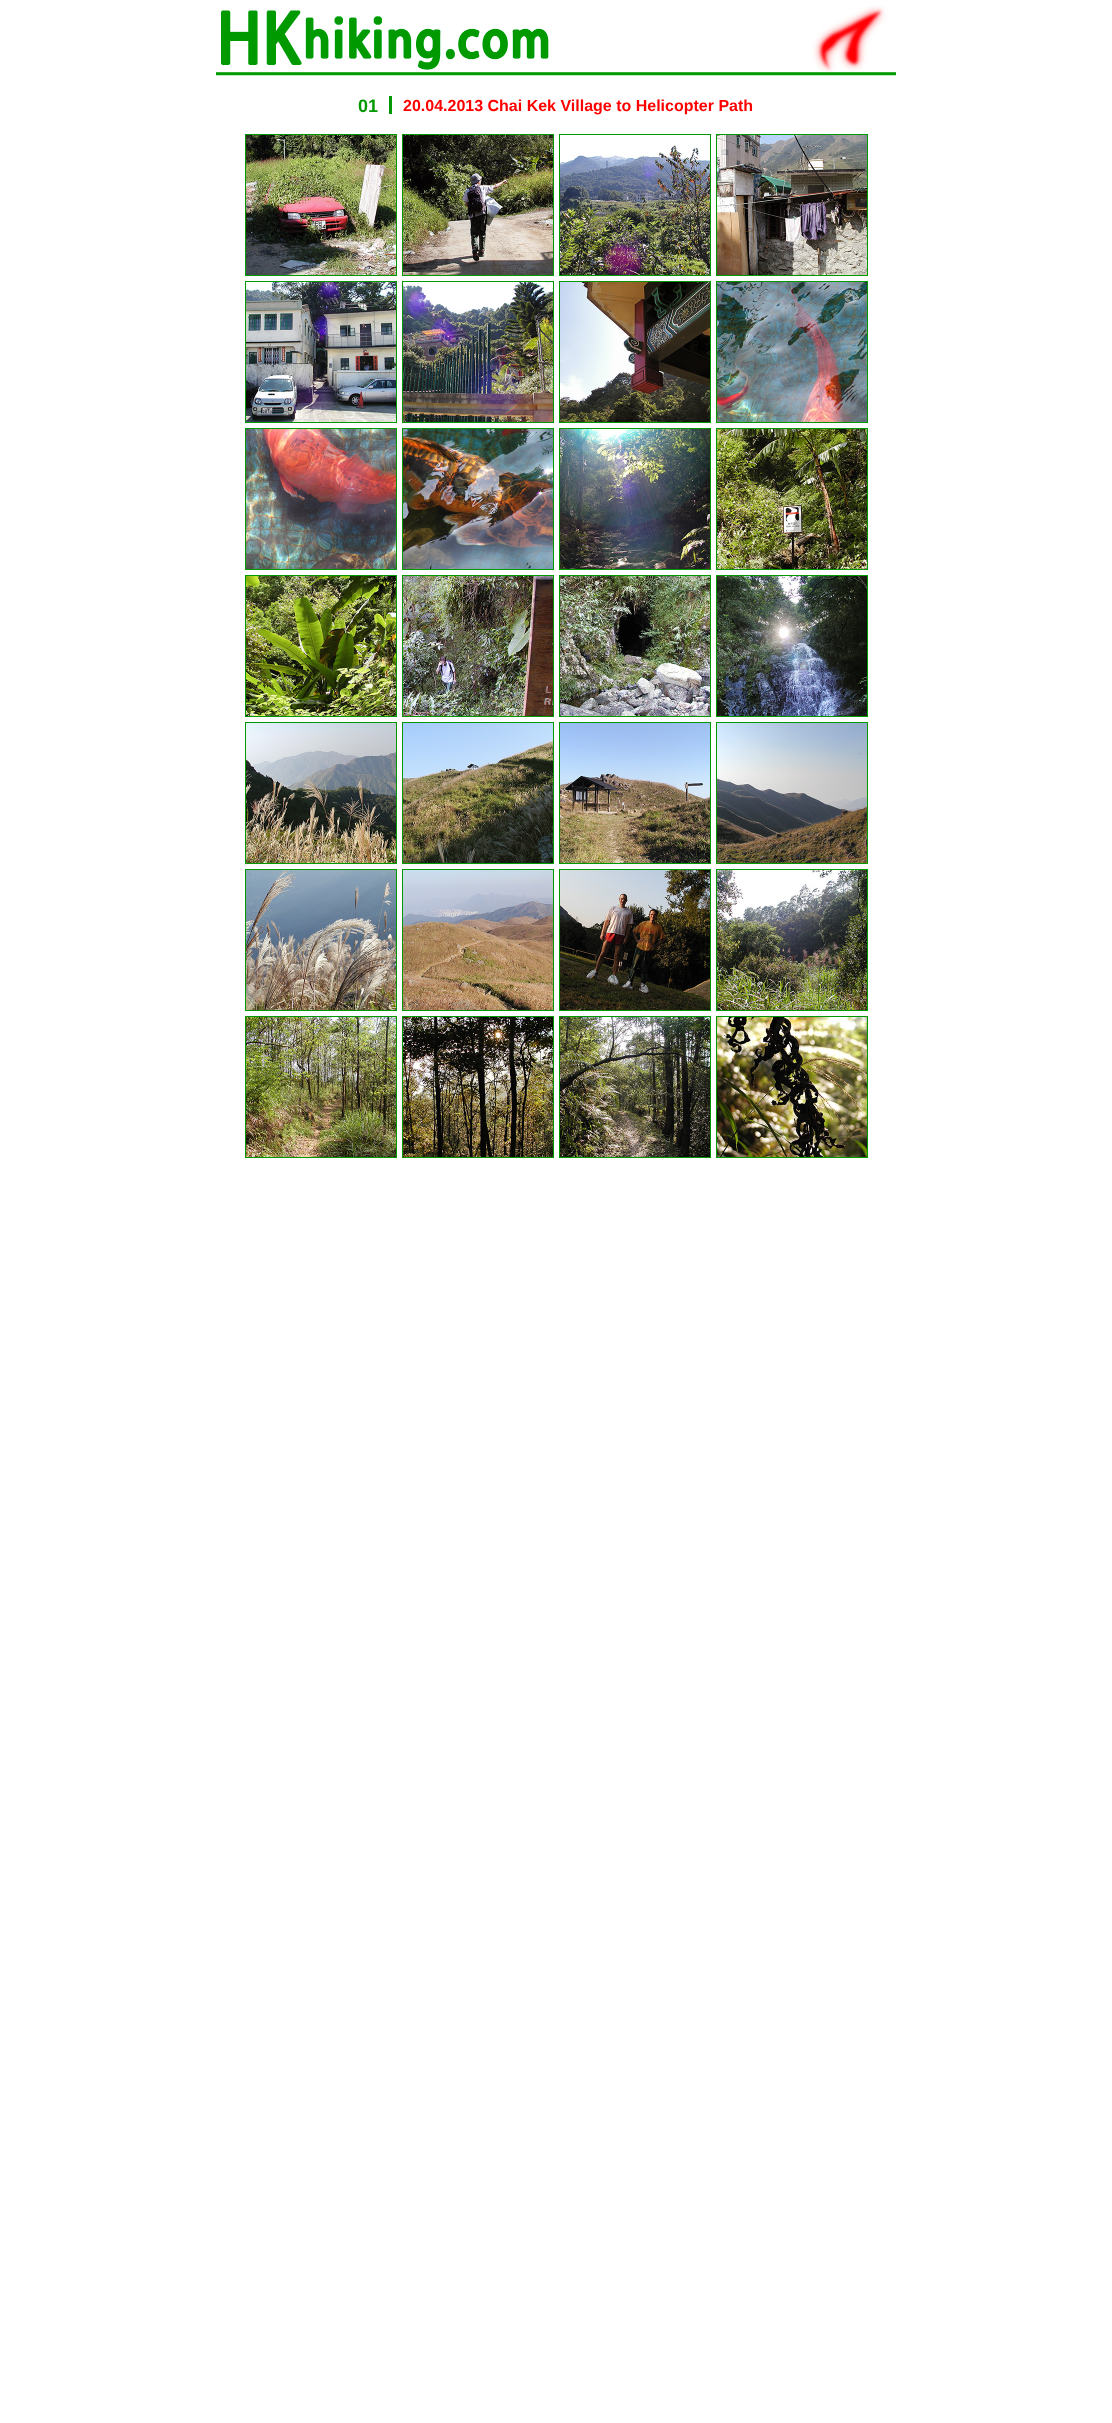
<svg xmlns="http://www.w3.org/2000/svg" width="1112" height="2423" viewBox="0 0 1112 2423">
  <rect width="100%" height="100%" fill="rgb(255,255,255)"/>
  <image x="216" y="6" width="680" height="70" href="pic1.png"/>
  <text x="358" y="112" font-family="Liberation Sans" font-size="18" font-weight="bold" fill="rgb(0,153,0)">01</text>
  <rect x="389" y="96" width="3" height="18" fill="rgb(0,153,0)"/>
  <text x="403" y="111" font-family="Liberation Sans" font-size="16" font-weight="bold" fill="rgb(255,0,0)">20.04.2013 Chai Kek Village to Helicopter Path</text>
  <rect x="245.5" y="134.5" width="151" height="141" fill="none" stroke="rgb(0,153,0)"/>
  <image x="246" y="135" width="150" height="140" href="pic2.png"/>
  <rect x="402.5" y="134.5" width="151" height="141" fill="none" stroke="rgb(0,153,0)"/>
  <image x="403" y="135" width="150" height="140" href="pic3.png"/>
  <rect x="559.5" y="134.5" width="151" height="141" fill="none" stroke="rgb(0,153,0)"/>
  <image x="560" y="144" width="150" height="131" href="pic4.png"/>
  <rect x="716.5" y="134.5" width="151" height="141" fill="none" stroke="rgb(0,153,0)"/>
  <image x="717" y="135" width="150" height="140" href="pic5.png"/>
  <rect x="245.5" y="281.5" width="151" height="141" fill="none" stroke="rgb(0,153,0)"/>
  <image x="246" y="282" width="150" height="140" href="pic6.png"/>
  <rect x="402.5" y="281.5" width="151" height="141" fill="none" stroke="rgb(0,153,0)"/>
  <image x="403" y="282" width="150" height="140" href="pic7.png"/>
  <rect x="559.5" y="281.5" width="151" height="141" fill="none" stroke="rgb(0,153,0)"/>
  <image x="560" y="282" width="150" height="140" href="pic8.png"/>
  <rect x="716.5" y="281.5" width="151" height="141" fill="none" stroke="rgb(0,153,0)"/>
  <image x="717" y="282" width="150" height="140" href="pic9.png"/>
  <rect x="245.5" y="428.5" width="151" height="141" fill="none" stroke="rgb(0,153,0)"/>
  <image x="246" y="429" width="150" height="140" href="pic10.png"/>
  <rect x="402.5" y="428.5" width="151" height="141" fill="none" stroke="rgb(0,153,0)"/>
  <image x="403" y="429" width="150" height="140" href="pic11.png"/>
  <rect x="559.5" y="428.5" width="151" height="141" fill="none" stroke="rgb(0,153,0)"/>
  <image x="560" y="429" width="150" height="140" href="pic12.png"/>
  <rect x="716.5" y="428.5" width="151" height="141" fill="none" stroke="rgb(0,153,0)"/>
  <image x="717" y="429" width="150" height="140" href="pic13.png"/>
  <rect x="245.5" y="575.5" width="151" height="141" fill="none" stroke="rgb(0,153,0)"/>
  <image x="246" y="576" width="150" height="140" href="pic14.png"/>
  <rect x="402.5" y="575.5" width="151" height="141" fill="none" stroke="rgb(0,153,0)"/>
  <image x="403" y="576" width="150" height="140" href="pic15.png"/>
  <rect x="559.5" y="575.5" width="151" height="141" fill="none" stroke="rgb(0,153,0)"/>
  <image x="560" y="576" width="150" height="140" href="pic16.png"/>
  <rect x="716.5" y="575.5" width="151" height="141" fill="none" stroke="rgb(0,153,0)"/>
  <image x="717" y="576" width="150" height="140" href="pic17.png"/>
  <rect x="245.5" y="722.5" width="151" height="141" fill="none" stroke="rgb(0,153,0)"/>
  <image x="246" y="723" width="150" height="140" href="pic18.png"/>
  <rect x="402.5" y="722.5" width="151" height="141" fill="none" stroke="rgb(0,153,0)"/>
  <image x="403" y="723" width="150" height="140" href="pic19.png"/>
  <rect x="559.5" y="722.5" width="151" height="141" fill="none" stroke="rgb(0,153,0)"/>
  <image x="560" y="723" width="150" height="140" href="pic20.png"/>
  <rect x="716.5" y="722.5" width="151" height="141" fill="none" stroke="rgb(0,153,0)"/>
  <image x="717" y="723" width="150" height="140" href="pic21.png"/>
  <rect x="245.5" y="869.5" width="151" height="141" fill="none" stroke="rgb(0,153,0)"/>
  <image x="246" y="870" width="150" height="140" href="pic22.png"/>
  <rect x="402.5" y="869.5" width="151" height="141" fill="none" stroke="rgb(0,153,0)"/>
  <image x="403" y="870" width="150" height="140" href="pic23.png"/>
  <rect x="559.5" y="869.5" width="151" height="141" fill="none" stroke="rgb(0,153,0)"/>
  <image x="560" y="870" width="150" height="140" href="pic24.png"/>
  <rect x="716.5" y="869.5" width="151" height="141" fill="none" stroke="rgb(0,153,0)"/>
  <image x="717" y="870" width="150" height="140" href="pic25.png"/>
  <rect x="245.5" y="1016.5" width="151" height="141" fill="none" stroke="rgb(0,153,0)"/>
  <image x="246" y="1017" width="150" height="140" href="pic26.png"/>
  <rect x="402.5" y="1016.5" width="151" height="141" fill="none" stroke="rgb(0,153,0)"/>
  <image x="403" y="1017" width="150" height="140" href="pic27.png"/>
  <rect x="559.5" y="1016.5" width="151" height="141" fill="none" stroke="rgb(0,153,0)"/>
  <image x="560" y="1017" width="150" height="140" href="pic28.png"/>
  <rect x="716.5" y="1016.5" width="151" height="141" fill="none" stroke="rgb(0,153,0)"/>
  <image x="717" y="1017" width="150" height="140" href="pic29.png"/>
</svg>
